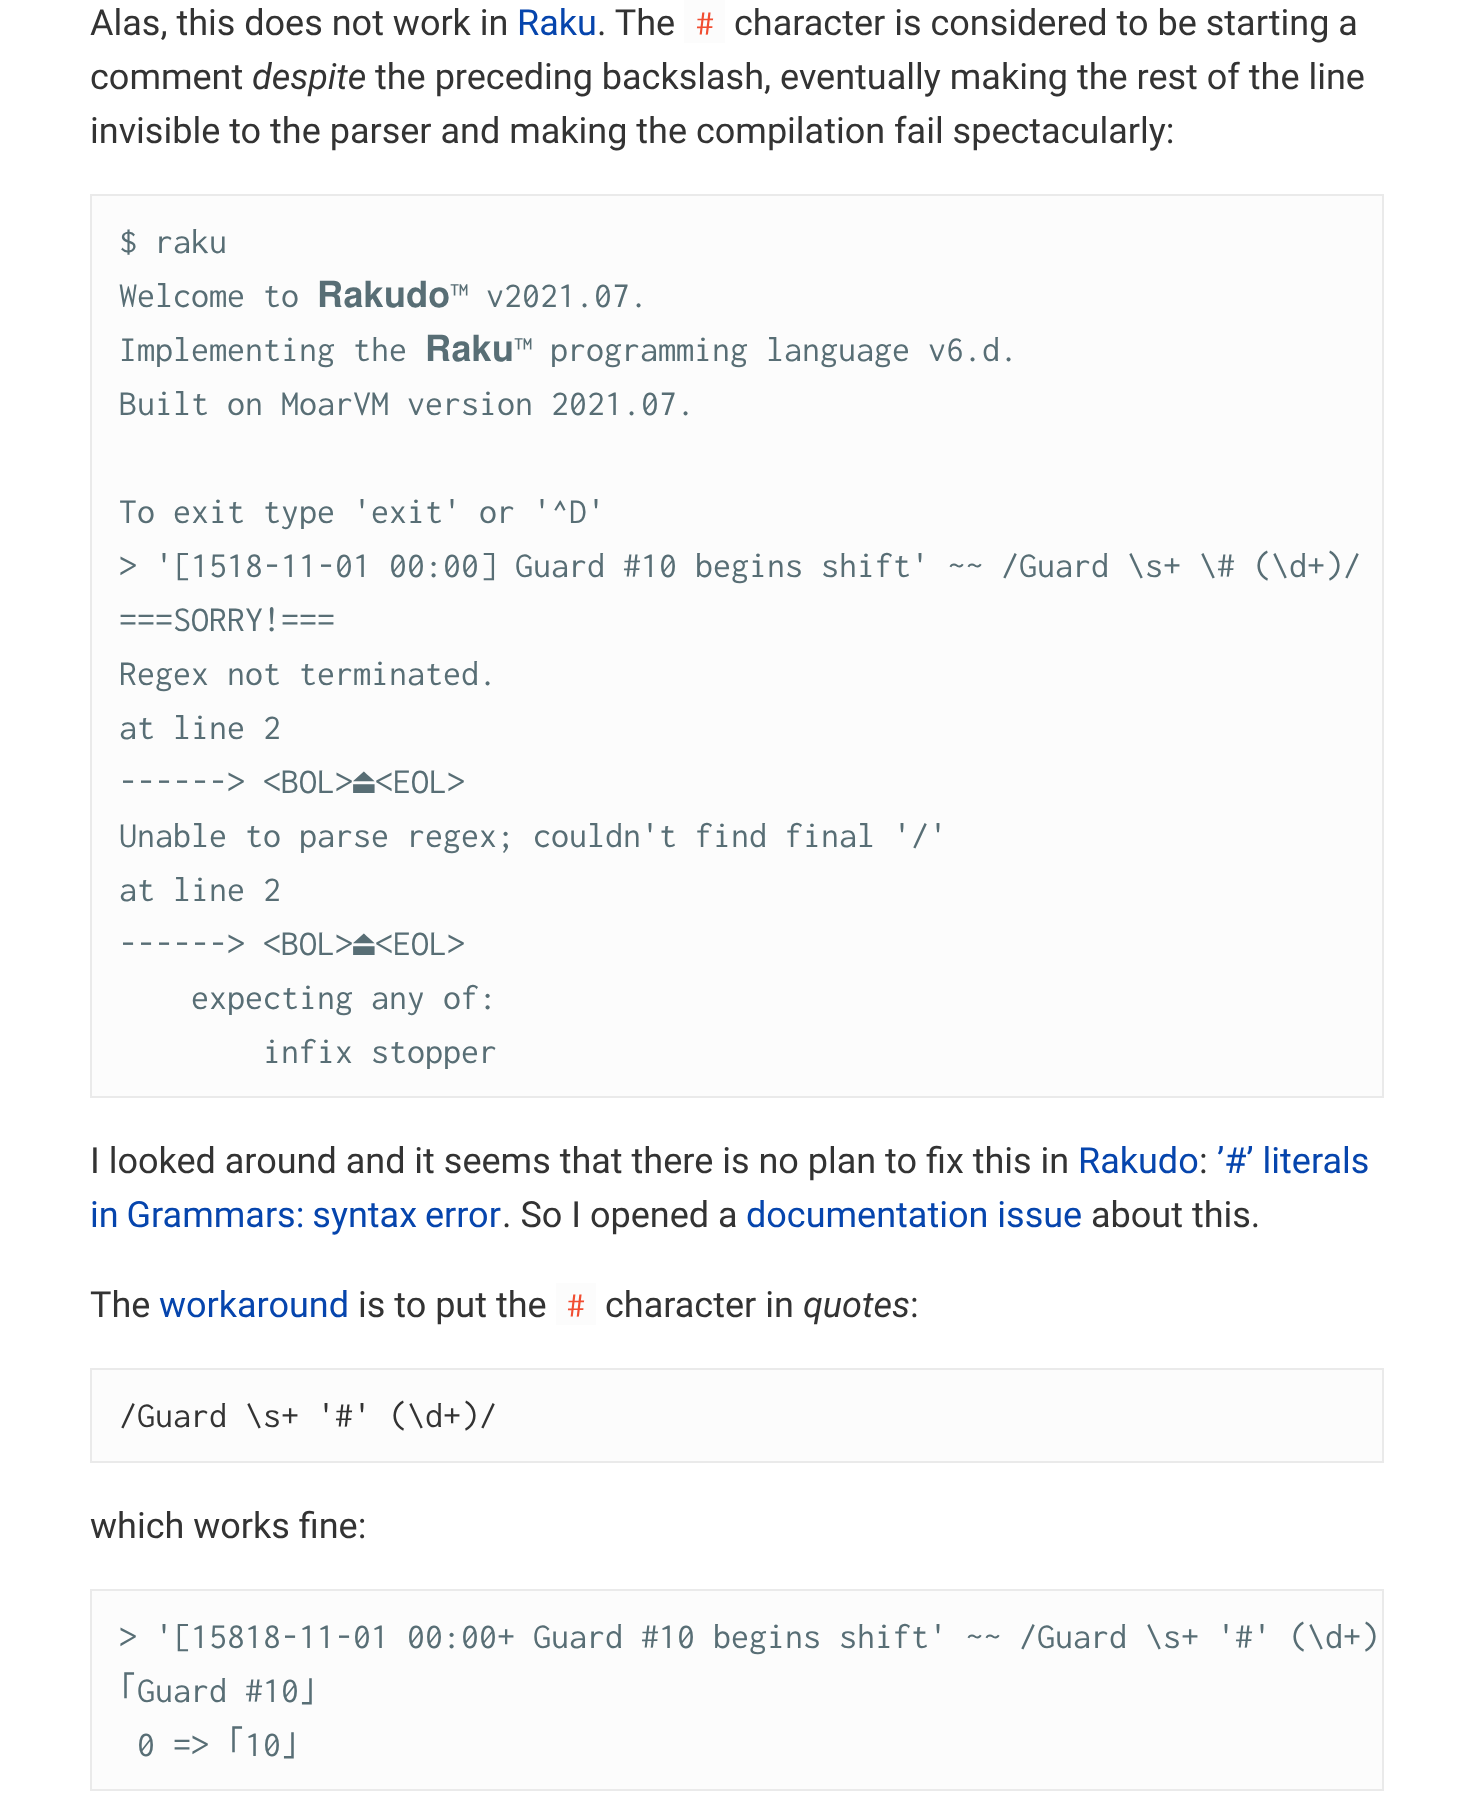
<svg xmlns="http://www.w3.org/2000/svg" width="1473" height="1812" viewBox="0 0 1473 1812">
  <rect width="100%" height="100%" fill="rgb(255,255,255)"/>
  <text x="90" y="35" font-family="Roboto" font-size="36" fill="rgb(51,51,51)">Alas, this does not work in</text>
  <text x="517" y="35" font-family="Roboto" font-size="36" fill="rgb(6,69,173)">Raku</text>
  <text x="597" y="35" font-family="Roboto" font-size="36" fill="rgb(51,51,51)">. The</text>
  <rect x="684" y="0" width="41" height="43" fill="rgb(252,252,252)"/>
  <text x="696" y="35" font-family="Inconsolata" font-size="36" fill="rgb(241,78,50)">#</text>
  <g font-family="Roboto" font-size="36" fill="rgb(51,51,51)">
    <text x="734" y="35">character is considered to be starting a</text>
    <text x="90" y="89">comment</text>
  </g>
  <text x="252" y="89" font-family="Roboto" font-size="36" font-style="italic" fill="rgb(51,51,51)">despite</text>
  <g font-family="Roboto" font-size="36" fill="rgb(51,51,51)">
    <text x="375" y="89">the preceding backslash, eventually making the rest of the line</text>
    <text x="90" y="143">invisible to the parser and making the compilation fail spectacularly:</text>
  </g>
  <rect x="91" y="195" width="1292" height="902" fill="rgb(252,252,252)" stroke="rgb(234,234,234)" stroke-width="2"/>
  <g font-family="Inconsolata" font-size="36" fill="rgb(88,110,117)">
    <text>
      <tspan x="119" y="253">$ raku</tspan>
      <tspan x="119" y="307">Welcome to</tspan>
    </text>
  </g>
  <text x="317" y="307" font-family="FreeSans" font-size="36" fill="rgb(88,110,117)">𝐑𝐚𝐤𝐮𝐝𝐨</text>
  <g font-family="Inconsolata" font-size="36" fill="rgb(88,110,117)">
    <text x="450" y="307">™ v2021.07.</text>
    <text x="119" y="361">Implementing the</text>
  </g>
  <text x="425" y="361" font-family="FreeSans" font-size="36" fill="rgb(88,110,117)">𝐑𝐚𝐤𝐮</text>
  <g font-family="Inconsolata" font-size="36" fill="rgb(88,110,117)">
    <text x="514" y="361">™ programming language v6.d.</text>
    <text x="119" y="415">Built on MoarVM version 2021.07.</text>
    <text>
      <tspan x="119" y="523">To exit type 'exit' or '^D'</tspan>
      <tspan x="119" y="577">&gt; '[1518-11-01 00:00] Guard #10 begins shift' ~~ /Guard \s+ \# (\d+)/</tspan>
      <tspan x="119" y="631">===SORRY!===</tspan>
      <tspan x="119" y="685">Regex not terminated.</tspan>
      <tspan x="119" y="739">at line 2</tspan>
      <tspan x="119" y="793">------&gt; &lt;BOL&gt;</tspan>
    </text>
  </g>
  <text x="353" y="793" font-family="DejaVu Sans Mono" font-size="36" fill="rgb(88,110,117)">⏏</text>
  <g font-family="Inconsolata" font-size="36" fill="rgb(88,110,117)">
    <text x="375" y="793">&lt;EOL&gt;</text>
    <text>
      <tspan x="119" y="847">Unable to parse regex; couldn't find final '/'</tspan>
      <tspan x="119" y="901">at line 2</tspan>
      <tspan x="119" y="955">------&gt; &lt;BOL&gt;</tspan>
    </text>
  </g>
  <text x="353" y="955" font-family="DejaVu Sans Mono" font-size="36" fill="rgb(88,110,117)">⏏</text>
  <g font-family="Inconsolata" font-size="36" fill="rgb(88,110,117)">
    <text x="375" y="955">&lt;EOL&gt;</text>
    <text x="191" y="1009">expecting any of:</text>
    <text x="263" y="1063">infix stopper</text>
  </g>
  <text x="90" y="1173" font-family="Roboto" font-size="36" fill="rgb(51,51,51)">I looked around and it seems that there is no plan to fix this in</text>
  <text x="1078" y="1173" font-family="Roboto" font-size="36" fill="rgb(6,69,173)">Rakudo</text>
  <text x="1199" y="1173" font-family="Roboto" font-size="36" fill="rgb(51,51,51)">:</text>
  <g font-family="Roboto" font-size="36" fill="rgb(6,69,173)">
    <text x="1217" y="1173">’#’ literals</text>
    <text x="90" y="1227" word-spacing="-1">in Grammars: syntax error</text>
  </g>
  <text x="502" y="1227" font-family="Roboto" font-size="36" fill="rgb(51,51,51)">. So I opened a</text>
  <text x="746" y="1227" font-family="Roboto" font-size="36" fill="rgb(6,69,173)">documentation issue</text>
  <g font-family="Roboto" font-size="36" fill="rgb(51,51,51)">
    <text x="1091" y="1227">about this.</text>
    <text x="90" y="1317">The</text>
  </g>
  <text x="159" y="1317" font-family="Roboto" font-size="36" fill="rgb(6,69,173)">workaround</text>
  <text x="358" y="1317" font-family="Roboto" font-size="36" fill="rgb(51,51,51)">is to put the</text>
  <rect x="556" y="1283" width="40" height="42" fill="rgb(252,252,252)"/>
  <text x="567" y="1317" font-family="Inconsolata" font-size="36" fill="rgb(241,78,50)">#</text>
  <text x="605" y="1317" font-family="Roboto" font-size="36" fill="rgb(51,51,51)">character in</text>
  <text x="803" y="1317" font-family="Roboto" font-size="36" font-style="italic" fill="rgb(51,51,51)">quotes</text>
  <text x="910" y="1317" font-family="Roboto" font-size="36" fill="rgb(51,51,51)">:</text>
  <rect x="91" y="1369" width="1292" height="93" fill="rgb(252,252,252)" stroke="rgb(234,234,234)" stroke-width="2"/>
  <text x="119" y="1427" font-family="Inconsolata" font-size="36" fill="rgb(51,51,51)">/Guard \s+ '#' (\d+)/</text>
  <text x="90" y="1538" font-family="Roboto" font-size="36" fill="rgb(51,51,51)">which works fine:</text>
  <rect x="91" y="1590" width="1292" height="200" fill="rgb(252,252,252)" stroke="rgb(234,234,234)" stroke-width="2"/>
  <text x="119" y="1648" font-family="Inconsolata" font-size="36" fill="rgb(88,110,117)">&gt; '[15818-11-01 00:00+ Guard #10 begins shift' ~~ /Guard \s+ '#' (\d+)</text>
  <text x="119" y="1702" font-family="IPAGothic" font-size="36" fill="rgb(88,110,117)">｢</text>
  <text x="137" y="1702" font-family="Inconsolata" font-size="36" fill="rgb(88,110,117)">Guard #10</text>
  <text x="299" y="1702" font-family="IPAGothic" font-size="36" fill="rgb(88,110,117)">｣</text>
  <text x="137" y="1756" font-family="Inconsolata" font-size="36" fill="rgb(88,110,117)">0 =&gt;</text>
  <text x="227" y="1756" font-family="IPAGothic" font-size="36" fill="rgb(88,110,117)">｢</text>
  <text x="245" y="1756" font-family="Inconsolata" font-size="36" fill="rgb(88,110,117)">10</text>
  <text x="281" y="1756" font-family="IPAGothic" font-size="36" fill="rgb(88,110,117)">｣</text>
</svg>
